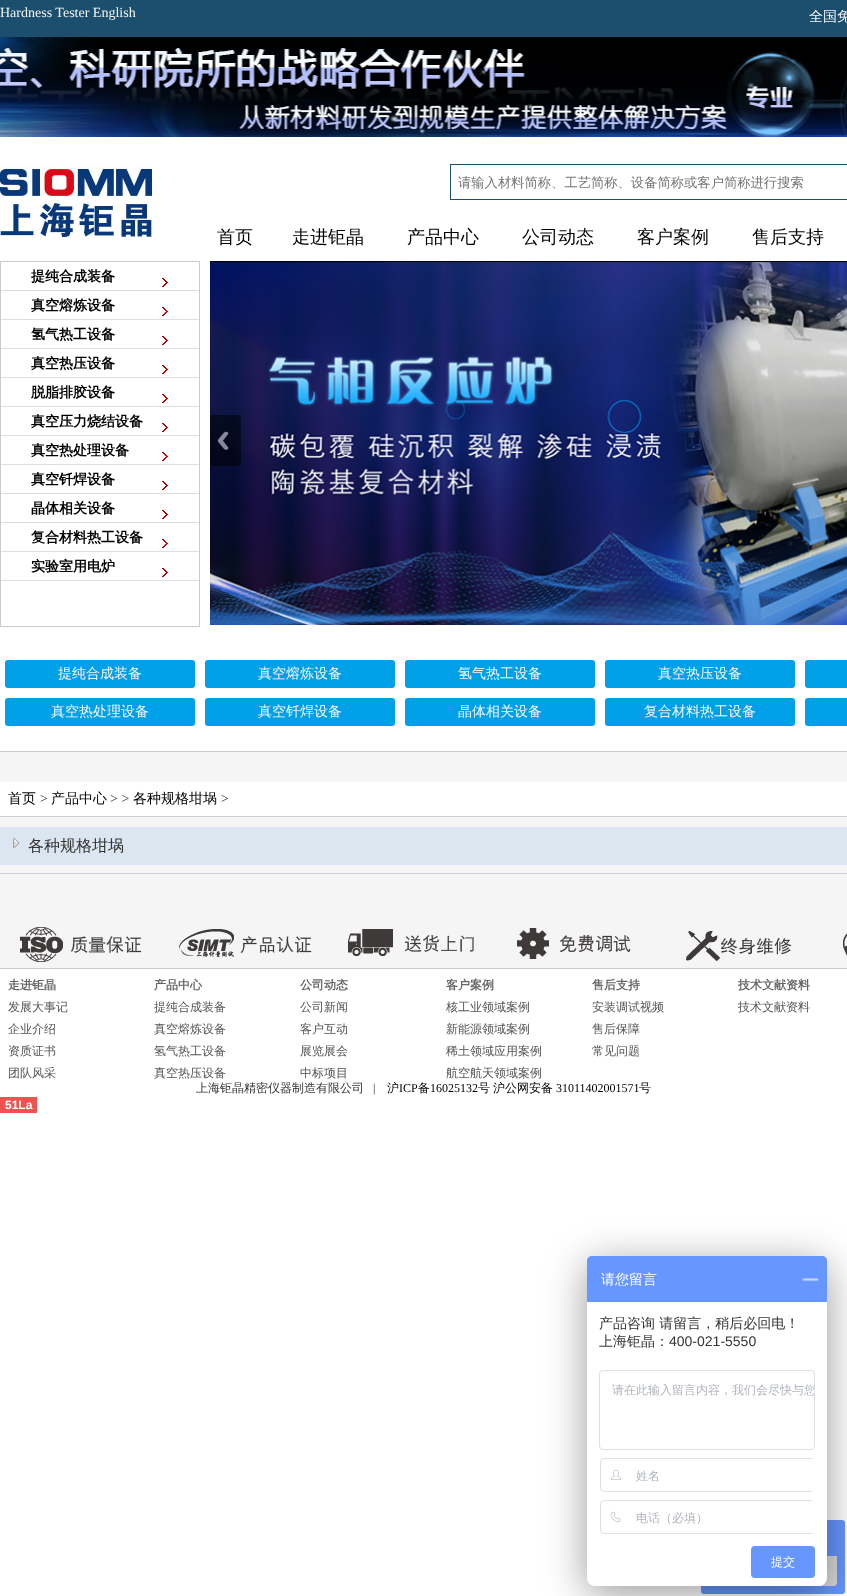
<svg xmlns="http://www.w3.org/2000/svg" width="847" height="1596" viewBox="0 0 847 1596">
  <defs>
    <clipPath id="clip1"><rect x="600" y="1371" width="214" height="78" rx="3"/></clipPath>
  </defs>
  <rect width="100%" height="100%" fill="rgb(255,255,255)"/>
  <rect x="0" y="0" width="847" height="37" fill="rgb(27,79,109)"/>
  <text x="0" y="17" font-family="Liberation Serif" font-size="14" fill="rgb(245,245,245)">Hardness Tester English</text>
  <text x="809" y="21" font-family="WenQuanYi Zen Hei" font-size="14" font-weight="500" fill="rgb(245,245,245)">全国免</text>
  <image x="0" y="37" width="847" height="100" href="pic1.png"/>
  <image x="0" y="164" width="152" height="75" href="pic2.png"/>
  <rect x="450.5" y="164.5" width="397" height="35" fill="none" stroke="rgb(27,79,109)"/>
  <text x="458" y="187" font-family="WenQuanYi Zen Hei" font-size="13.3" font-weight="500" fill="rgb(117,117,117)">请输入材料简称、工艺简称、设备简称或客户简称进行搜索</text>
  <g font-family="WenQuanYi Zen Hei" font-size="18" font-weight="500" fill="rgb(0,0,0)">
    <text x="217" y="243">首页</text>
    <text x="292" y="243">走进钜晶</text>
    <text x="407" y="243">产品中心</text>
    <text x="522" y="243">公司动态</text>
    <text x="637" y="243">客户案例</text>
    <text x="752" y="243">售后支持</text>
  </g>
  <rect x="0.5" y="261.5" width="199" height="365" fill="none" stroke="rgb(204,204,204)"/>
  <image x="162" y="278" width="6" height="9" href="pic3.png"/>
  <rect x="1" y="290" width="198" height="1" fill="rgb(222,222,222)"/>
  <text x="31" y="281" font-family="WenQuanYi Zen Hei" font-size="14" font-weight="bold" fill="rgb(0,0,0)">提纯合成装备</text>
  <image x="162" y="307" width="6" height="9" href="pic3.png"/>
  <rect x="1" y="319" width="198" height="1" fill="rgb(222,222,222)"/>
  <text x="31" y="310" font-family="WenQuanYi Zen Hei" font-size="14" font-weight="bold" fill="rgb(0,0,0)">真空熔炼设备</text>
  <image x="162" y="336" width="6" height="9" href="pic3.png"/>
  <rect x="1" y="348" width="198" height="1" fill="rgb(222,222,222)"/>
  <text x="31" y="339" font-family="WenQuanYi Zen Hei" font-size="14" font-weight="bold" fill="rgb(0,0,0)">氢气热工设备</text>
  <image x="162" y="365" width="6" height="9" href="pic3.png"/>
  <rect x="1" y="377" width="198" height="1" fill="rgb(222,222,222)"/>
  <text x="31" y="368" font-family="WenQuanYi Zen Hei" font-size="14" font-weight="bold" fill="rgb(0,0,0)">真空热压设备</text>
  <image x="162" y="394" width="6" height="9" href="pic3.png"/>
  <rect x="1" y="406" width="198" height="1" fill="rgb(222,222,222)"/>
  <text x="31" y="397" font-family="WenQuanYi Zen Hei" font-size="14" font-weight="bold" fill="rgb(0,0,0)">脱脂排胶设备</text>
  <image x="162" y="423" width="6" height="9" href="pic3.png"/>
  <rect x="1" y="435" width="198" height="1" fill="rgb(222,222,222)"/>
  <text x="31" y="426" font-family="WenQuanYi Zen Hei" font-size="14" font-weight="bold" fill="rgb(0,0,0)">真空压力烧结设备</text>
  <image x="162" y="452" width="6" height="9" href="pic3.png"/>
  <rect x="1" y="464" width="198" height="1" fill="rgb(222,222,222)"/>
  <text x="31" y="455" font-family="WenQuanYi Zen Hei" font-size="14" font-weight="bold" fill="rgb(0,0,0)">真空热处理设备</text>
  <image x="162" y="481" width="6" height="9" href="pic3.png"/>
  <rect x="1" y="493" width="198" height="1" fill="rgb(222,222,222)"/>
  <text x="31" y="484" font-family="WenQuanYi Zen Hei" font-size="14" font-weight="bold" fill="rgb(0,0,0)">真空钎焊设备</text>
  <image x="162" y="510" width="6" height="9" href="pic3.png"/>
  <rect x="1" y="522" width="198" height="1" fill="rgb(222,222,222)"/>
  <text x="31" y="513" font-family="WenQuanYi Zen Hei" font-size="14" font-weight="bold" fill="rgb(0,0,0)">晶体相关设备</text>
  <image x="162" y="539" width="6" height="9" href="pic3.png"/>
  <rect x="1" y="551" width="198" height="1" fill="rgb(222,222,222)"/>
  <text x="31" y="542" font-family="WenQuanYi Zen Hei" font-size="14" font-weight="bold" fill="rgb(0,0,0)">复合材料热工设备</text>
  <image x="162" y="568" width="6" height="9" href="pic3.png"/>
  <rect x="1" y="580" width="198" height="1" fill="rgb(222,222,222)"/>
  <text x="31" y="571" font-family="WenQuanYi Zen Hei" font-size="14" font-weight="bold" fill="rgb(0,0,0)">实验室用电炉</text>
  <image x="210" y="261" width="637" height="364" href="pic4.png"/>
  <image x="210" y="415" width="31" height="51" href="pic5.png"/>
  <rect x="5" y="660" width="190" height="28" rx="3" fill="rgb(0,160,233)"/>
  <text x="58" y="678" font-family="WenQuanYi Zen Hei" font-size="14" font-weight="500" fill="rgb(245,245,245)">提纯合成装备</text>
  <rect x="205" y="660" width="190" height="28" rx="3" fill="rgb(0,160,233)"/>
  <text x="258" y="678" font-family="WenQuanYi Zen Hei" font-size="14" font-weight="500" fill="rgb(245,245,245)">真空熔炼设备</text>
  <rect x="405" y="660" width="190" height="28" rx="3" fill="rgb(0,160,233)"/>
  <text x="458" y="678" font-family="WenQuanYi Zen Hei" font-size="14" font-weight="500" fill="rgb(245,245,245)">氢气热工设备</text>
  <rect x="605" y="660" width="190" height="28" rx="3" fill="rgb(0,160,233)"/>
  <text x="658" y="678" font-family="WenQuanYi Zen Hei" font-size="14" font-weight="500" fill="rgb(245,245,245)">真空热压设备</text>
  <rect x="805" y="660" width="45" height="28" rx="3" fill="rgb(0,160,233)"/>
  <rect x="5" y="698" width="190" height="28" rx="3" fill="rgb(0,160,233)"/>
  <text x="51" y="716" font-family="WenQuanYi Zen Hei" font-size="14" font-weight="500" fill="rgb(245,245,245)">真空热处理设备</text>
  <rect x="205" y="698" width="190" height="28" rx="3" fill="rgb(0,160,233)"/>
  <text x="258" y="716" font-family="WenQuanYi Zen Hei" font-size="14" font-weight="500" fill="rgb(245,245,245)">真空钎焊设备</text>
  <rect x="405" y="698" width="190" height="28" rx="3" fill="rgb(0,160,233)"/>
  <text x="458" y="716" font-family="WenQuanYi Zen Hei" font-size="14" font-weight="500" fill="rgb(245,245,245)">晶体相关设备</text>
  <rect x="605" y="698" width="190" height="28" rx="3" fill="rgb(0,160,233)"/>
  <text x="644" y="716" font-family="WenQuanYi Zen Hei" font-size="14" font-weight="500" fill="rgb(245,245,245)">复合材料热工设备</text>
  <rect x="805" y="698" width="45" height="28" rx="3" fill="rgb(0,160,233)"/>
  <rect x="0" y="752" width="847" height="216" fill="rgb(245,245,245)"/>
  <rect x="0" y="751" width="847" height="1" fill="rgb(204,204,204)"/>
  <rect x="0" y="782" width="847" height="34" fill="rgb(255,255,255)"/>
  <rect x="0" y="816" width="847" height="1" fill="rgb(204,204,204)"/>
  <text x="8" y="803" font-family="WenQuanYi Zen Hei" font-size="14" font-weight="500" fill="rgb(0,0,0)">首页</text>
  <text x="40" y="803" font-family="Liberation Serif" font-size="14" fill="rgb(51,51,51)">&gt;</text>
  <text x="51" y="803" font-family="WenQuanYi Zen Hei" font-size="14" font-weight="500" fill="rgb(0,0,0)">产品中心</text>
  <text x="110" y="803" font-family="Liberation Serif" font-size="14" fill="rgb(51,51,51)">&gt; &gt;</text>
  <text x="133" y="803" font-family="WenQuanYi Zen Hei" font-size="14" font-weight="500" fill="rgb(0,0,0)">各种规格坩埚</text>
  <text x="221" y="803" font-family="Liberation Serif" font-size="14" fill="rgb(51,51,51)">&gt;</text>
  <rect x="0" y="827" width="847" height="38" fill="rgb(219,230,241)"/>
  <image x="13" y="838" width="6" height="10" href="pic6.png"/>
  <text x="28" y="851" font-family="WenQuanYi Zen Hei" font-size="16" font-weight="500" fill="rgb(51,51,51)">各种规格坩埚</text>
  <rect x="0" y="873" width="847" height="1" fill="rgb(204,204,204)"/>
  <rect x="0" y="968" width="847" height="1" fill="rgb(204,204,204)"/>
  <image x="20" y="927" width="122" height="35" href="pic7.png"/>
  <image x="179" y="929" width="133" height="28" href="pic8.png"/>
  <image x="348" y="929" width="126" height="27" href="pic9.png"/>
  <image x="517" y="928" width="114" height="31" href="pic10.png"/>
  <image x="686" y="931" width="106" height="30" href="pic11.png"/>
  <image x="843" y="933" width="4" height="23" href="pic12.png"/>
  <text x="8" y="989" font-family="WenQuanYi Zen Hei" font-size="12" font-weight="bold" fill="rgb(102,102,102)">走进钜晶</text>
  <g font-family="WenQuanYi Zen Hei" font-size="12" font-weight="500" fill="rgb(84,84,84)">
    <text>
      <tspan x="8" y="1011">发展大事记</tspan>
      <tspan x="8" y="1033">企业介绍</tspan>
      <tspan x="8" y="1055">资质证书</tspan>
      <tspan x="8" y="1077">团队风采</tspan>
    </text>
  </g>
  <text x="154" y="989" font-family="WenQuanYi Zen Hei" font-size="12" font-weight="bold" fill="rgb(102,102,102)">产品中心</text>
  <g font-family="WenQuanYi Zen Hei" font-size="12" font-weight="500" fill="rgb(84,84,84)">
    <text>
      <tspan x="154" y="1011">提纯合成装备</tspan>
      <tspan x="154" y="1033">真空熔炼设备</tspan>
      <tspan x="154" y="1055">氢气热工设备</tspan>
      <tspan x="154" y="1077">真空热压设备</tspan>
    </text>
  </g>
  <text x="300" y="989" font-family="WenQuanYi Zen Hei" font-size="12" font-weight="bold" fill="rgb(102,102,102)">公司动态</text>
  <g font-family="WenQuanYi Zen Hei" font-size="12" font-weight="500" fill="rgb(84,84,84)">
    <text>
      <tspan x="300" y="1011">公司新闻</tspan>
      <tspan x="300" y="1033">客户互动</tspan>
      <tspan x="300" y="1055">展览展会</tspan>
      <tspan x="300" y="1077">中标项目</tspan>
    </text>
  </g>
  <text x="446" y="989" font-family="WenQuanYi Zen Hei" font-size="12" font-weight="bold" fill="rgb(102,102,102)">客户案例</text>
  <g font-family="WenQuanYi Zen Hei" font-size="12" font-weight="500" fill="rgb(84,84,84)">
    <text>
      <tspan x="446" y="1011">核工业领域案例</tspan>
      <tspan x="446" y="1033">新能源领域案例</tspan>
      <tspan x="446" y="1055">稀土领域应用案例</tspan>
      <tspan x="446" y="1077">航空航天领域案例</tspan>
    </text>
  </g>
  <text x="592" y="989" font-family="WenQuanYi Zen Hei" font-size="12" font-weight="bold" fill="rgb(102,102,102)">售后支持</text>
  <g font-family="WenQuanYi Zen Hei" font-size="12" font-weight="500" fill="rgb(84,84,84)">
    <text>
      <tspan x="592" y="1011">安装调试视频</tspan>
      <tspan x="592" y="1033">售后保障</tspan>
      <tspan x="592" y="1055">常见问题</tspan>
    </text>
  </g>
  <text x="738" y="989" font-family="WenQuanYi Zen Hei" font-size="12" font-weight="bold" fill="rgb(102,102,102)">技术文献资料</text>
  <text x="738" y="1011" font-family="WenQuanYi Zen Hei" font-size="12" font-weight="500" fill="rgb(84,84,84)">技术文献资料</text>
  <text x="196" y="1092" font-family="WenQuanYi Zen Hei" font-size="12" font-weight="500" fill="rgb(51,51,51)">上海钜晶精密仪器制造有限公司</text>
  <text x="373" y="1092" font-family="Liberation Serif" font-size="12" fill="rgb(51,51,51)">|</text>
  <text x="387" y="1092" font-family="WenQuanYi Zen Hei" font-size="12" font-weight="500" fill="rgb(0,0,0)">沪</text>
  <text x="399" y="1092" font-family="Liberation Serif" font-size="12" fill="rgb(0,0,0)">ICP</text>
  <text x="418" y="1092" font-family="WenQuanYi Zen Hei" font-size="12" font-weight="500" fill="rgb(0,0,0)">备</text>
  <text x="430" y="1092" font-family="Liberation Serif" font-size="12" fill="rgb(0,0,0)">16025132</text>
  <g font-family="WenQuanYi Zen Hei" font-size="12" font-weight="500" fill="rgb(0,0,0)">
    <text x="478" y="1092">号</text>
    <text x="493" y="1092">沪公网安备</text>
  </g>
  <text x="556" y="1092" font-family="Liberation Serif" font-size="12" fill="rgb(0,0,0)">31011402001571</text>
  <text x="639" y="1092" font-family="WenQuanYi Zen Hei" font-size="12" font-weight="500" fill="rgb(0,0,0)">号</text>
  <rect x="0" y="1097" width="37" height="16" fill="rgb(239,83,80)"/>
  <text x="5" y="1109" font-family="Liberation Sans" font-size="12" font-weight="bold" fill="rgb(255,255,255)">51La</text>
  <rect x="701" y="1520" width="144" height="74" rx="3" fill="rgb(102,150,255)"/>
  <path d="M709 1556H837V1583C837 1584.5 835.5 1586 834 1586H712C710.5 1586 709 1584.5 709 1583Z" fill="rgb(217,217,217)"/>
  <rect x="587" y="1264" width="240" height="330" rx="8" fill="rgba(0,0,0,0.4)" filter="blur(20px)"/>
  <rect x="587" y="1256" width="240" height="330" rx="8" fill="rgb(255,255,255)"/>
  <path d="M592 1256H822C825 1256 827 1258 827 1261V1302H587V1261C587 1258 589 1256 592 1256Z" fill="rgb(102,150,255)"/>
  <text x="601" y="1284" font-family="WenQuanYi Zen Hei" font-size="14" font-weight="500" fill="rgb(255,255,255)">请您留言</text>
  <image x="802" y="1278" width="17" height="4" href="pic13.png"/>
  <g font-family="WenQuanYi Zen Hei" font-size="14" font-weight="500" fill="rgb(51,51,51)">
    <text>
      <tspan x="599" y="1328">产品咨询 请留言，稍后必回电！</tspan>
      <tspan x="599" y="1346">上海钜晶：</tspan>
    </text>
  </g>
  <text x="669" y="1346" font-family="Liberation Sans" font-size="14" fill="rgb(51,51,51)">400-021-5550</text>
  <rect x="599.5" y="1370.5" width="215" height="79" rx="3.5" fill="none" stroke="rgb(220,223,230)"/>
  <g clip-path="url(#clip1)">
    <text x="612" y="1394" font-family="WenQuanYi Zen Hei" font-size="12" font-weight="500" fill="rgb(176,180,187)">请在此输入留言内容，我们会尽快与您</text>
  </g>
  <rect x="600.5" y="1458.5" width="214" height="33" rx="3.5" fill="none" stroke="rgb(220,223,230)"/>
  <image x="610" y="1469" width="12" height="11" href="pic14.png"/>
  <rect x="811" y="1459" width="4" height="32" fill="rgb(255,255,255)"/>
  <text x="636" y="1480" font-family="WenQuanYi Zen Hei" font-size="12" font-weight="500" fill="rgb(176,180,187)">姓名</text>
  <rect x="600.5" y="1500.5" width="214" height="33" rx="3.5" fill="none" stroke="rgb(220,223,230)"/>
  <image x="610" y="1511" width="11" height="12" href="pic15.png"/>
  <rect x="811" y="1501" width="4" height="32" fill="rgb(255,255,255)"/>
  <text x="636" y="1522" font-family="WenQuanYi Zen Hei" font-size="12" font-weight="500" fill="rgb(176,180,187)">电话（必填）</text>
  <rect x="751" y="1546" width="64" height="32" rx="4" fill="rgb(102,150,255)"/>
  <text x="771" y="1566" font-family="WenQuanYi Zen Hei" font-size="12" font-weight="500" fill="rgb(255,255,255)">提交</text>
</svg>
